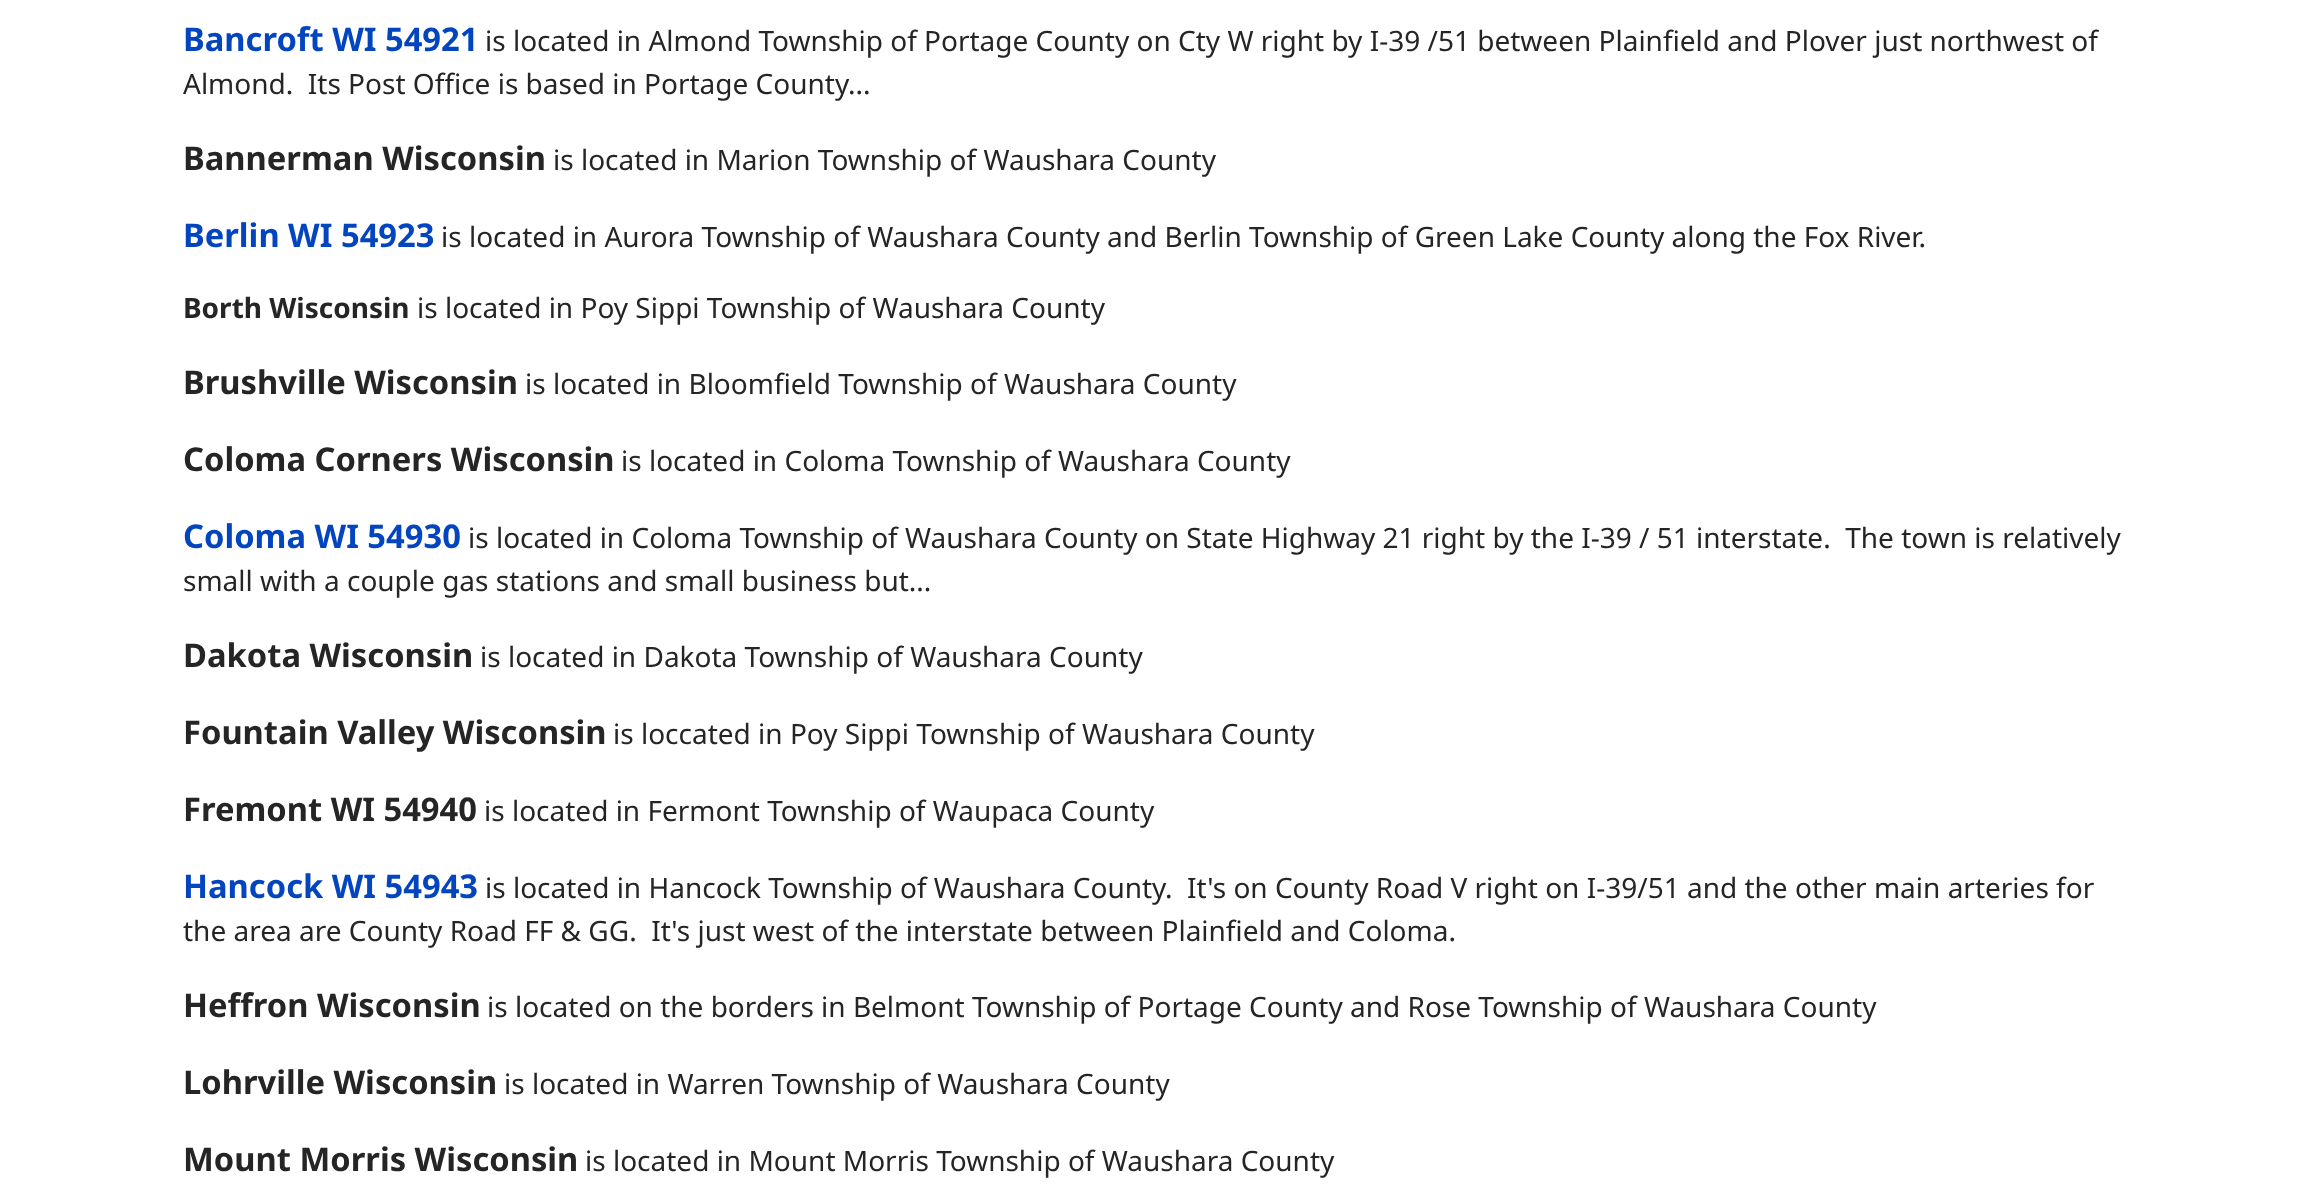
<svg xmlns="http://www.w3.org/2000/svg" width="2307" height="1197" viewBox="0 0 2307 1197">
  <rect width="100%" height="100%" fill="rgb(255,255,255)"/>
  <text x="183" y="51" font-family="Noto Sans" font-size="32.7" font-weight="bold" fill="rgb(3,69,191)">Bancroft WI 54921</text>
  <g font-family="Noto Sans" font-size="28" fill="rgb(37,37,37)">
    <text x="485" y="51">is located in Almond Township of Portage County on Cty W right by I-39 /51 between Plainfield and Plover just northwest of</text>
    <text x="183" y="94" xml:space="preserve">Almond.  Its Post Office is based in Portage County...</text>
  </g>
  <text x="183" y="170" font-family="Noto Sans" font-size="32.7" font-weight="bold" fill="rgb(37,37,37)">Bannerman Wisconsin</text>
  <text x="553" y="170" font-family="Noto Sans" font-size="28" fill="rgb(37,37,37)">is located in Marion Township of Waushara County</text>
  <text x="183" y="247" font-family="Noto Sans" font-size="32.7" font-weight="bold" fill="rgb(3,69,191)">Berlin WI 54923</text>
  <text x="441" y="247" font-family="Noto Sans" font-size="28" fill="rgb(37,37,37)">is located in Aurora Township of Waushara County and Berlin Township of Green Lake County along the Fox River.</text>
  <text x="183" y="318" font-family="Noto Sans" font-size="28" font-weight="bold" fill="rgb(37,37,37)">Borth Wisconsin</text>
  <text x="417" y="318" font-family="Noto Sans" font-size="28" fill="rgb(37,37,37)">is located in Poy Sippi Township of Waushara County</text>
  <text x="183" y="394" font-family="Noto Sans" font-size="32.7" font-weight="bold" fill="rgb(37,37,37)">Brushville Wisconsin</text>
  <text x="525" y="394" font-family="Noto Sans" font-size="28" fill="rgb(37,37,37)">is located in Bloomfield Township of Waushara County</text>
  <text x="183" y="471" font-family="Noto Sans" font-size="32.7" font-weight="bold" fill="rgb(37,37,37)">Coloma Corners Wisconsin</text>
  <text x="621" y="471" font-family="Noto Sans" font-size="28" fill="rgb(37,37,37)">is located in Coloma Township of Waushara County</text>
  <text x="183" y="548" font-family="Noto Sans" font-size="32.7" font-weight="bold" fill="rgb(3,69,191)">Coloma WI 54930</text>
  <g font-family="Noto Sans" font-size="28" fill="rgb(37,37,37)">
    <text x="468" y="548" xml:space="preserve">is located in Coloma Township of Waushara County on State Highway 21 right by the I-39 / 51 interstate.  The town is relatively</text>
    <text x="183" y="591">small with a couple gas stations and small business but...</text>
  </g>
  <text x="183" y="667" font-family="Noto Sans" font-size="32.7" font-weight="bold" fill="rgb(37,37,37)">Dakota Wisconsin</text>
  <text x="480" y="667" font-family="Noto Sans" font-size="28" fill="rgb(37,37,37)">is located in Dakota Township of Waushara County</text>
  <text x="183" y="744" font-family="Noto Sans" font-size="32.7" font-weight="bold" fill="rgb(37,37,37)">Fountain Valley Wisconsin</text>
  <text x="613" y="744" font-family="Noto Sans" font-size="28" fill="rgb(37,37,37)">is loccated in Poy Sippi Township of Waushara County</text>
  <text x="183" y="821" font-family="Noto Sans" font-size="32.7" font-weight="bold" fill="rgb(37,37,37)">Fremont WI 54940</text>
  <text x="484" y="821" font-family="Noto Sans" font-size="28" fill="rgb(37,37,37)">is located in Fermont Township of Waupaca County</text>
  <text x="183" y="898" font-family="Noto Sans" font-size="32.7" font-weight="bold" fill="rgb(3,69,191)">Hancock WI 54943</text>
  <g font-family="Noto Sans" font-size="28" fill="rgb(37,37,37)">
    <text x="485" y="898">is located in Hancock Township of Waushara County</text>
    <text x="1165" y="898" xml:space="preserve">.  It's on County Road V right on I-39/51 and the other main arteries for</text>
    <text x="183" y="941" xml:space="preserve">the area are County Road FF &amp; GG.  It's just west of the interstate between Plainfield and Coloma.</text>
  </g>
  <text x="183" y="1017" font-family="Noto Sans" font-size="32.7" font-weight="bold" fill="rgb(37,37,37)">Heffron Wisconsin</text>
  <text x="487" y="1017" font-family="Noto Sans" font-size="28" fill="rgb(37,37,37)">is located on the borders in Belmont Township of Portage County and Rose Township of Waushara County</text>
  <text x="183" y="1094" font-family="Noto Sans" font-size="32.7" font-weight="bold" fill="rgb(37,37,37)">Lohrville Wisconsin</text>
  <text x="504" y="1094" font-family="Noto Sans" font-size="28" fill="rgb(37,37,37)">is located in Warren Township of Waushara County</text>
  <text x="183" y="1171" font-family="Noto Sans" font-size="32.7" font-weight="bold" fill="rgb(37,37,37)">Mount Morris Wisconsin</text>
  <text x="585" y="1171" font-family="Noto Sans" font-size="28" fill="rgb(37,37,37)">is located in Mount Morris Township of Waushara County</text>
</svg>
